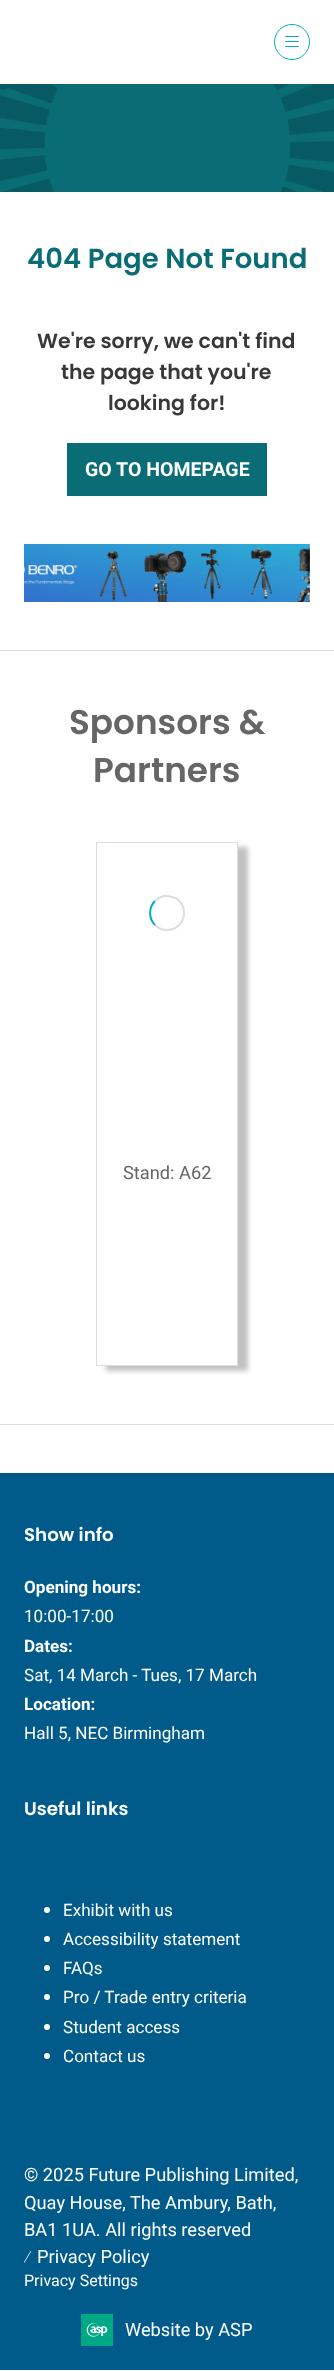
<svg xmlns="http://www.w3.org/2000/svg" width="334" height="2371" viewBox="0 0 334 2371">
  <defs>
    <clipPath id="clip1"><path d="M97 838H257V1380H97ZM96 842H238V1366H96Z" clip-rule="evenodd"/></clipPath>
  </defs>
  <rect width="100%" height="100%" fill="rgb(255,255,255)"/>
  <circle cx="292" cy="42" r="17.5" fill="none" stroke="rgb(0,173,193)"/>
  <image x="285" y="36" width="14" height="11" href="pic1.png"/>
  <image x="0" y="84" width="334" height="108" href="pic2.png"/>
  <text x="27" y="268" font-family="Poppins" font-size="27.5" font-weight="600" fill="rgb(10,109,117)">404 Page Not Found</text>
  <g font-family="Poppins" font-size="20.5" font-weight="600" fill="rgb(56,56,56)">
    <text x="37" y="348">We're sorry, we can't find</text>
    <text x="61" y="379">the page that you're</text>
    <text x="108" y="410">looking for!</text>
  </g>
  <rect x="67" y="443" width="200" height="53" fill="rgb(10,109,117)"/>
  <text x="85" y="476" font-family="Roboto" font-size="19.5" font-weight="bold" fill="rgb(255,255,255)">GO TO HOMEPAGE</text>
  <image x="24" y="544" width="286" height="58" href="pic3.png"/>
  <rect x="0" y="650" width="334" height="1" fill="rgb(221,221,221)"/>
  <rect x="0" y="1424" width="334" height="1" fill="rgb(221,221,221)"/>
  <g font-family="Poppins" font-size="34.25" font-weight="600" fill="rgb(102,102,102)">
    <text x="69" y="734">Sponsors &amp;</text>
    <text x="93" y="782">Partners</text>
  </g>
  <g clip-path="url(#clip1)">
    <rect x="106" y="847" width="142" height="524" fill="rgb(195,193,193)" filter="blur(2.5px)"/>
  </g>
  <rect x="96.5" y="842.5" width="141" height="523" fill="none" stroke="rgb(221,221,221)"/>
  <path d="M155 901C159 897 165 895 170.5 896.5C190.5 900.5 187.5 930 167 930C162.5 930 158 928 155 925" fill="none" stroke="rgb(221,221,221)" stroke-width="2"/>
  <path d="M155 925C148.5 918.5 148.5 907.5 155 901" fill="none" stroke="rgb(0,173,193)" stroke-width="2"/>
  <text x="123" y="1179" font-family="Roboto" font-size="18.25" fill="rgb(102,102,102)">Stand: A62</text>
  <rect x="0" y="1473" width="334" height="897" fill="rgb(0,91,138)"/>
  <text x="24" y="1541" font-family="Poppins" font-size="18.25" font-weight="600" fill="rgb(255,255,255)">Show info</text>
  <text x="24" y="1593" font-family="Roboto" font-size="17.1" font-weight="bold" fill="rgb(255,255,255)">Opening hours:</text>
  <text x="24" y="1622" font-family="Roboto" font-size="17.1" fill="rgb(255,255,255)">10:00-17:00</text>
  <text x="24" y="1652" font-family="Roboto" font-size="17.1" font-weight="bold" fill="rgb(255,255,255)">Dates:</text>
  <text x="24" y="1681" font-family="Roboto" font-size="17.1" fill="rgb(255,255,255)">Sat, 14 March - Tues, 17 March</text>
  <text x="24" y="1710" font-family="Roboto" font-size="17.1" font-weight="bold" fill="rgb(255,255,255)">Location:</text>
  <text x="24" y="1739" font-family="Roboto" font-size="17.1" fill="rgb(255,255,255)">Hall 5, NEC Birmingham</text>
  <text x="24" y="1815" font-family="Poppins" font-size="18.25" font-weight="600" fill="rgb(255,255,255)">Useful links</text>
  <circle cx="47" cy="1910" r="3" fill="rgb(255,255,255)"/>
  <text x="63" y="1916" font-family="Roboto" font-size="17.1" fill="rgb(255,255,255)">Exhibit with us</text>
  <circle cx="47" cy="1939" r="3" fill="rgb(255,255,255)"/>
  <text x="63" y="1945" font-family="Roboto" font-size="17.1" fill="rgb(255,255,255)">Accessibility statement</text>
  <circle cx="47" cy="1968" r="3" fill="rgb(255,255,255)"/>
  <text x="63" y="1974" font-family="Roboto" font-size="17.1" fill="rgb(255,255,255)">FAQs</text>
  <circle cx="47" cy="1997" r="3" fill="rgb(255,255,255)"/>
  <text x="63" y="2003" font-family="Roboto" font-size="17.1" fill="rgb(255,255,255)">Pro / Trade entry criteria</text>
  <circle cx="47" cy="2027" r="3" fill="rgb(255,255,255)"/>
  <text x="63" y="2033" font-family="Roboto" font-size="17.1" fill="rgb(255,255,255)">Student access</text>
  <circle cx="47" cy="2056" r="3" fill="rgb(255,255,255)"/>
  <text x="63" y="2062" font-family="Roboto" font-size="17.1" fill="rgb(255,255,255)">Contact us</text>
  <g font-family="Roboto" font-size="18.25" fill="rgb(255,255,255)">
    <text>
      <tspan x="24" y="2181">© 2025 Future Publishing Limited,</tspan>
      <tspan x="24" y="2209">Quay House, The Ambury, Bath,</tspan>
      <tspan x="24" y="2236">BA1 1UA. All rights reserved</tspan>
    </text>
  </g>
  <image x="24" y="2251" width="8" height="12" href="pic4.png"/>
  <text x="37" y="2263" font-family="Roboto" font-size="18.25" fill="rgb(255,255,255)">Privacy Policy</text>
  <text x="24" y="2286" font-family="Roboto" font-size="16" fill="rgb(255,255,255)">Privacy Settings</text>
  <image x="81" y="2314" width="32" height="32" href="pic5.png"/>
  <text x="125" y="2336" font-family="Roboto" font-size="18.25" fill="rgb(255,255,255)">Website by ASP</text>
</svg>
